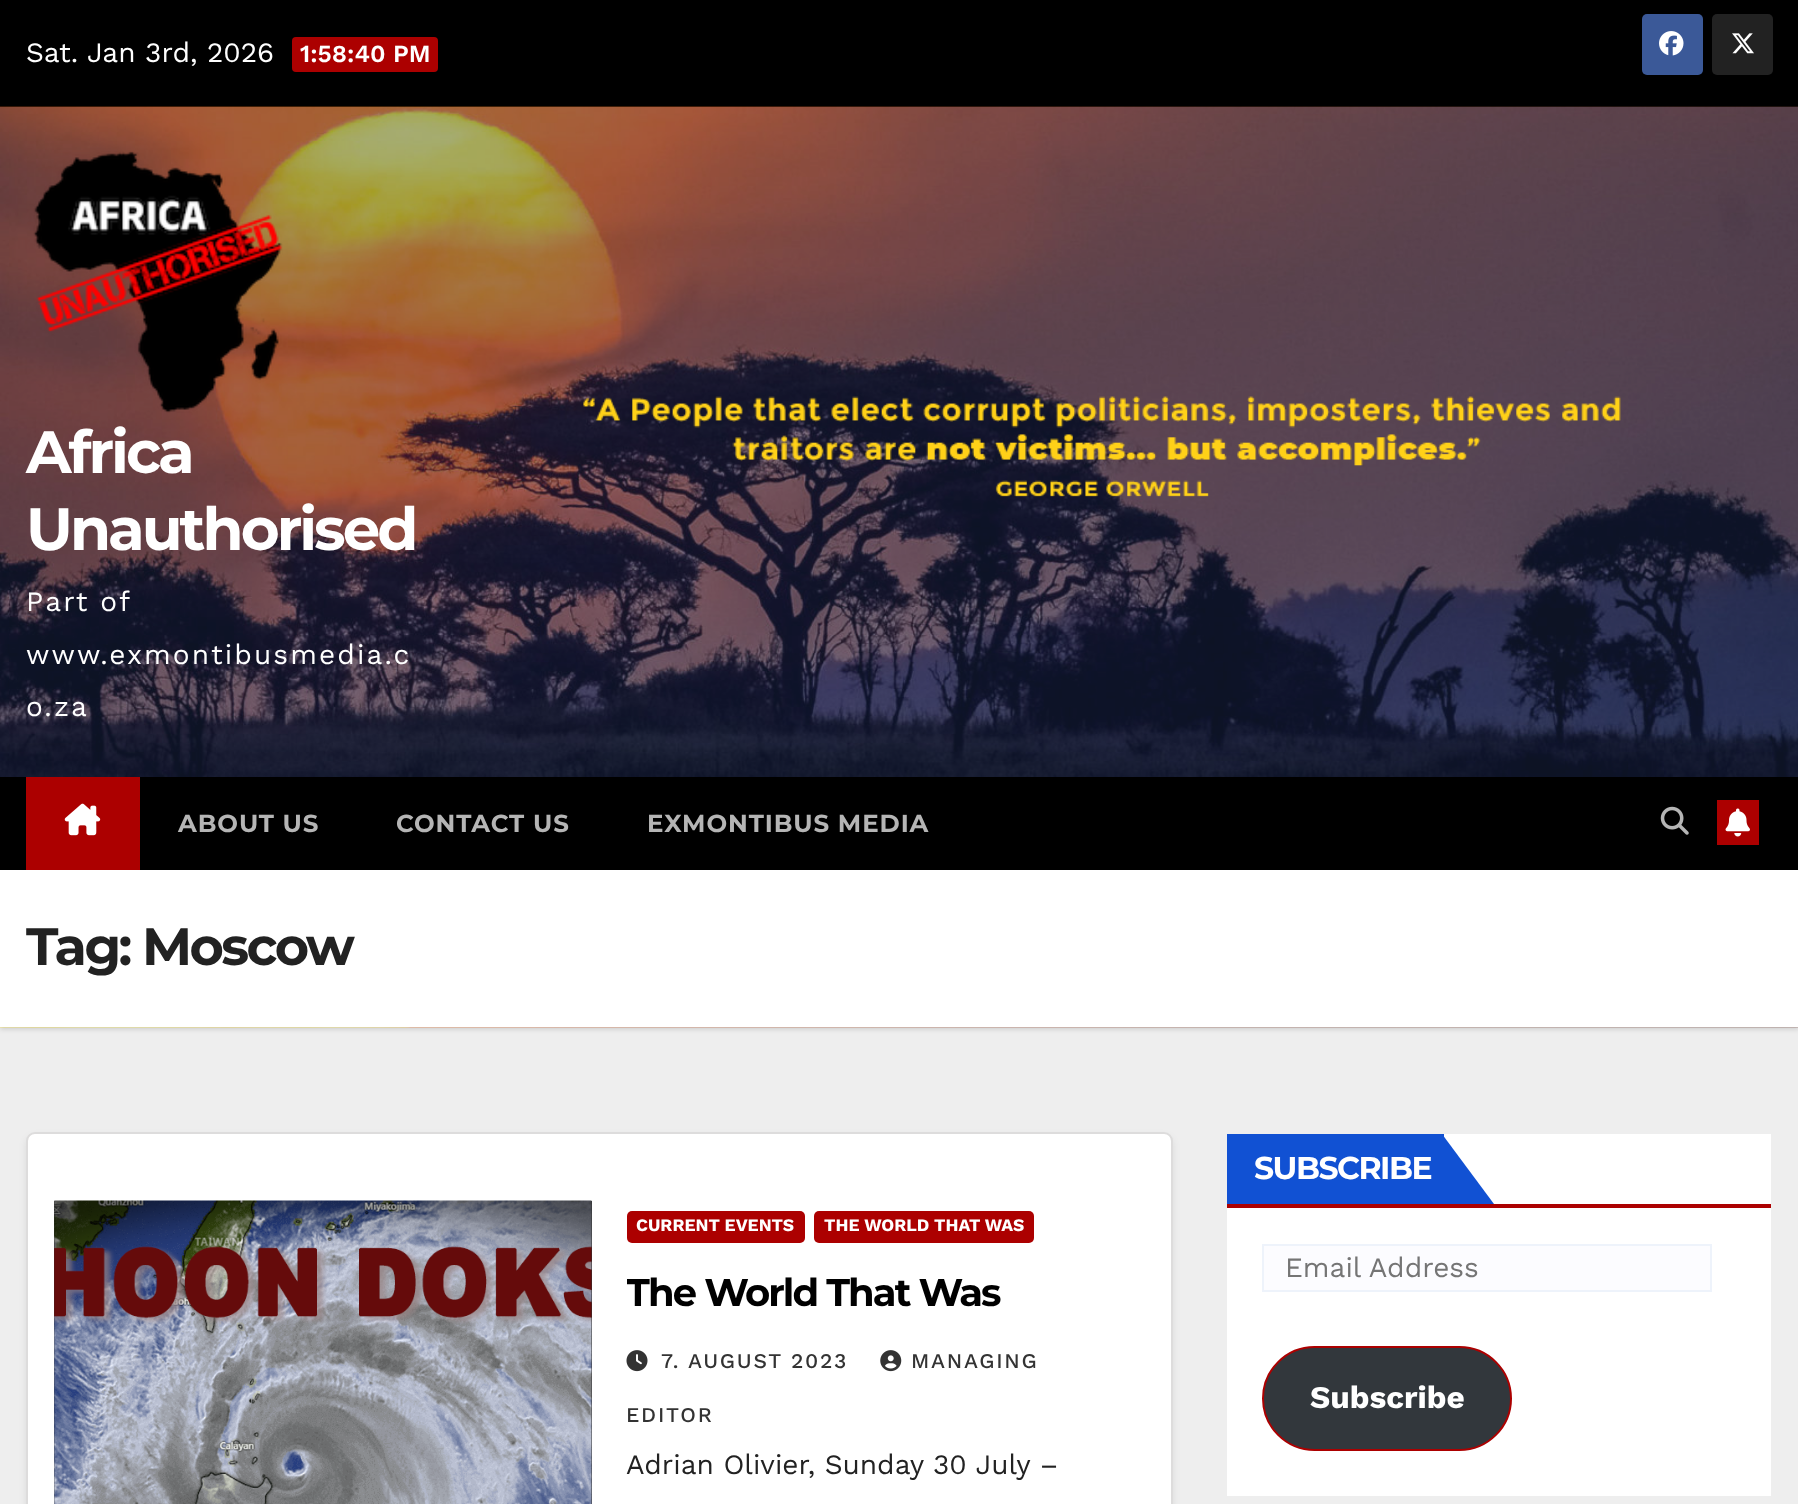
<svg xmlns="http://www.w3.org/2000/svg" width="1798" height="1504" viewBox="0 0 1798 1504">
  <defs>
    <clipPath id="clip1"><rect x="627" y="1267" width="518" height="56"/></clipPath>
  </defs>
  <rect width="100%" height="100%" fill="rgb(238,238,238)"/>
  <rect x="0" y="0" width="1798" height="107" fill="rgb(0,0,0)"/>
  <text x="26" y="62" font-family="Work Sans" font-size="28" fill="rgb(255,255,255)">Sat. Jan 3rd, 2026</text>
  <rect x="292" y="37" width="146" height="35" rx="4" fill="rgb(172,0,0)"/>
  <text x="300" y="62" font-family="Work Sans" font-size="24.5" font-weight="600" fill="rgb(255,255,255)">1:58:40 PM</text>
  <rect x="1642" y="14" width="61" height="61" rx="5" fill="rgb(59,89,152)"/>
  <image x="1659" y="31" width="25" height="25" href="pic1.png"/>
  <rect x="1712" y="14" width="61" height="61" rx="5" fill="rgb(34,34,34)"/>
  <image x="1732" y="33" width="22" height="21" href="pic2.png"/>
  <image x="0" y="106" width="1798" height="671" href="pic3.png"/>
  <image x="33" y="151" width="250" height="262" href="pic4.png"/>
  <g font-family="Montserrat" font-size="59.5" font-weight="bold" letter-spacing="-3" fill="rgb(255,255,255)">
    <text>
      <tspan x="26" y="473">Africa</tspan>
      <tspan x="26" y="550">Unauthorised</tspan>
    </text>
  </g>
  <g font-family="Work Sans" font-size="28" letter-spacing="2.1" fill="rgb(255,255,255)">
    <text>
      <tspan x="26" y="611" word-spacing="-1">Part of</tspan>
      <tspan x="26" y="664">www.exmontibusmedia.c</tspan>
      <tspan x="26" y="716">o.za</tspan>
    </text>
  </g>
  <image x="583" y="396" width="1038" height="101" href="pic5.png"/>
  <rect x="0" y="872" width="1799" height="157" fill="rgba(0,0,0,0.15)" filter="blur(2.5px)"/>
  <rect x="0" y="777" width="1798" height="93" fill="rgb(0,0,0)"/>
  <rect x="26" y="777" width="114" height="93" fill="rgb(172,0,0)"/>
  <image x="64" y="803" width="37" height="33" href="pic6.png"/>
  <g font-family="Montserrat" font-size="24.5" font-weight="bold" letter-spacing="0.9" fill="rgb(181,181,181)">
    <text x="178" y="832">ABOUT US</text>
    <text x="396" y="832">CONTACT US</text>
    <text x="647" y="832">EXMONTIBUS MEDIA</text>
  </g>
  <image x="1660" y="806" width="29" height="29" href="pic7.png"/>
  <rect x="1717" y="800" width="42" height="45" fill="rgb(172,0,0)"/>
  <image x="1725" y="808" width="25" height="29" href="pic8.png"/>
  <image x="0" y="1027" width="1798" height="1" href="pic9.png"/>
  <rect x="0" y="870" width="1798" height="157" fill="rgb(255,255,255)"/>
  <text x="26" y="965" font-family="Montserrat" font-size="52.5" font-weight="bold" letter-spacing="-2.6" fill="rgb(34,34,34)">Tag: Moscow</text>
  <rect x="26" y="1136" width="1147" height="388" rx="9" fill="rgba(0,0,0,0.08)" filter="blur(3.5px)"/>
  <rect x="27" y="1133" width="1145" height="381" rx="8" fill="rgb(255,255,255)" stroke="rgb(221,220,220)" stroke-width="2"/>
  <rect x="54" y="1201" width="538" height="303" fill="rgb(51,51,51)"/>
  <image x="54" y="1200" width="538" height="304" href="pic10.png"/>
  <rect x="627" y="1211" width="178" height="32" rx="5" fill="rgb(172,0,0)"/>
  <text x="636" y="1231" font-family="Work Sans" font-size="17.5" font-weight="bold" fill="rgb(255,255,255)">CURRENT EVENTS</text>
  <rect x="814" y="1211" width="220" height="32" rx="5" fill="rgb(172,0,0)"/>
  <text x="824" y="1231" font-family="Work Sans" font-size="17.5" font-weight="bold" fill="rgb(255,255,255)">THE WORLD THAT WAS</text>
  <g clip-path="url(#clip1)">
    <text x="626" y="1306" font-family="Montserrat" font-size="38.5" font-weight="bold" letter-spacing="-1.9" fill="rgb(0,0,0)">The World That Was</text>
  </g>
  <image x="880" y="1350" width="22" height="22" href="pic11.png"/>
  <g font-family="Work Sans" font-size="21" font-weight="500" letter-spacing="1.75" fill="rgb(51,51,51)">
    <text x="911" y="1368">MANAGING</text>
    <text x="626" y="1422">EDITOR</text>
  </g>
  <image x="626" y="1350" width="22" height="22" href="pic12.png"/>
  <text x="661" y="1368" font-family="Work Sans" font-size="21" font-weight="500" letter-spacing="1.75" fill="rgb(51,51,51)">7. AUGUST 2023</text>
  <text x="626" y="1474" font-family="Work Sans" font-size="28" fill="rgb(34,34,34)">Adrian Olivier, Sunday 30 July –</text>
  <rect x="1227" y="1134" width="544" height="362" fill="rgb(255,255,255)"/>
  <rect x="1227" y="1204" width="544" height="4" fill="rgb(172,0,0)"/>
  <rect x="1227" y="1134" width="217" height="70" fill="rgb(17,81,211)"/>
  <text x="1254" y="1179" font-family="Montserrat" font-size="31.5" font-weight="bold" letter-spacing="-1.5" fill="rgb(255,255,255)">SUBSCRIBE</text>
  <path d="M1442 1204V1134L1494 1204Z" fill="rgb(17,81,211)"/>
  <rect x="1263" y="1245" width="448" height="46" fill="rgb(252,252,255)" stroke="rgb(238,243,251)" stroke-width="2"/>
  <text x="1285" y="1277" font-family="Work Sans" font-size="28" fill="rgb(117,117,117)">Email Address</text>
  <rect x="1263" y="1347" width="248" height="103" rx="51.5" fill="rgb(50,55,60)" stroke="rgb(172,0,0)" stroke-width="2"/>
  <text x="1310" y="1408" font-family="Work Sans" font-size="31.5" font-weight="bold" fill="rgb(255,255,255)">Subscribe</text>
</svg>
